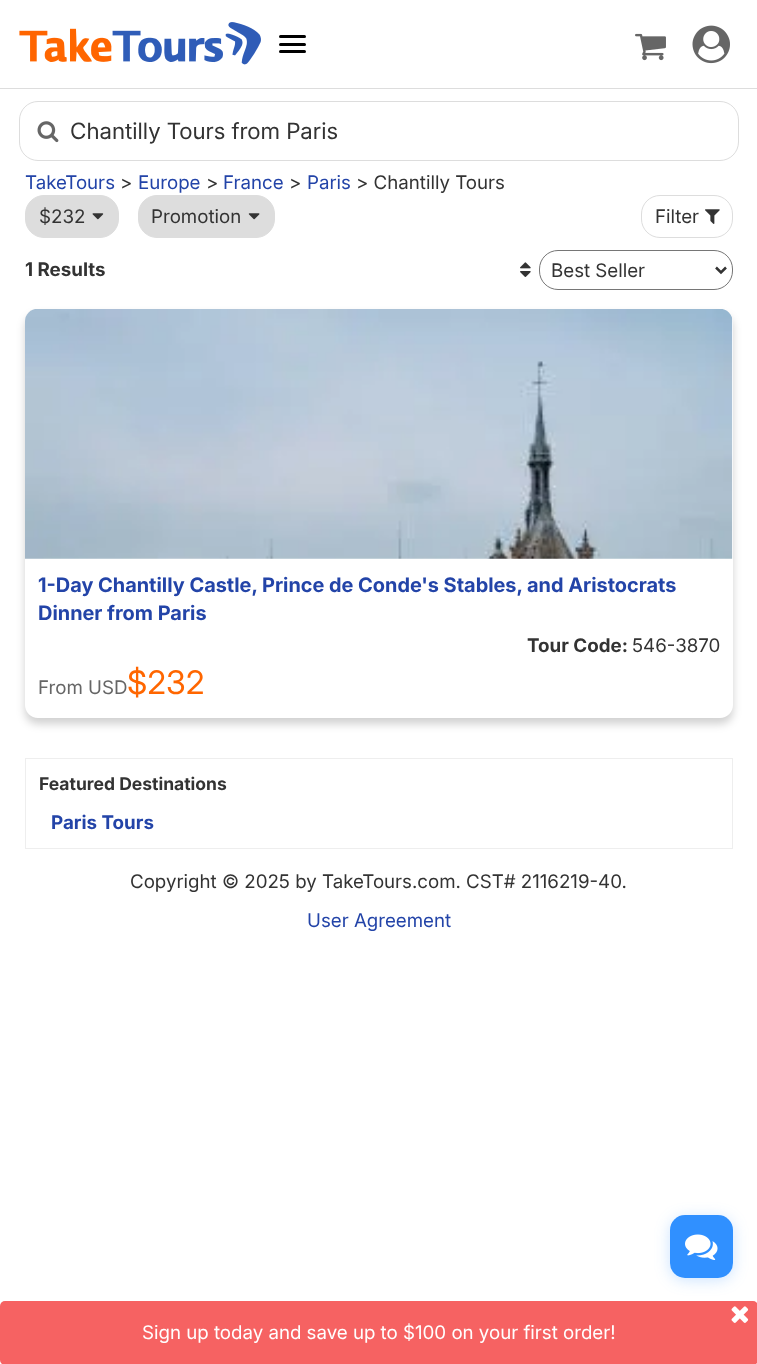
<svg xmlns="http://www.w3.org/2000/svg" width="757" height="1364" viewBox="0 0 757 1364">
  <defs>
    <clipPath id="clip1"><path d="M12 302H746V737H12ZM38 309H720C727 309 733 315 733 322V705C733 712 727 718 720 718H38C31 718 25 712 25 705V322C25 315 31 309 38 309Z" clip-rule="evenodd"/></clipPath>
  </defs>
  <rect width="100%" height="100%" fill="rgb(255,255,255)"/>
  <rect x="0" y="88" width="757" height="1" fill="rgb(221,221,221)"/>
  <image x="19" y="22" width="242" height="43" href="pic1.png"/>
  <rect x="279" y="35" width="27" height="3" rx="1.5" fill="rgb(0,0,0)"/>
  <rect x="279" y="43" width="27" height="3" rx="1.5" fill="rgb(0,0,0)"/>
  <rect x="279" y="50" width="27" height="3" rx="1.5" fill="rgb(0,0,0)"/>
  <image x="635" y="33" width="31" height="28" href="pic2.png"/>
  <image x="692" y="25" width="38" height="39" href="pic3.png"/>
  <rect x="19.5" y="101.5" width="719" height="59" rx="18.5" fill="none" stroke="rgb(221,221,221)"/>
  <image x="37" y="121" width="22" height="22" href="pic4.png"/>
  <text x="70" y="139" font-family="'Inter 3'" font-size="22.5" fill="rgb(51,51,51)">Chantilly Tours from Paris</text>
  <text x="25" y="189" font-family="Inter" font-size="18.75" fill="rgb(35,68,168)">TakeTours</text>
  <text x="120" y="189" font-family="Inter" font-size="18.75" fill="rgb(51,51,51)">&gt;</text>
  <text x="138" y="189" font-family="Inter" font-size="18.75" fill="rgb(35,68,168)">Europe</text>
  <text x="206" y="189" font-family="Inter" font-size="18.75" fill="rgb(51,51,51)">&gt;</text>
  <text x="223" y="189" font-family="Inter" font-size="18.75" fill="rgb(35,68,168)">France</text>
  <text x="289" y="189" font-family="Inter" font-size="18.75" fill="rgb(51,51,51)">&gt;</text>
  <text x="307" y="189" font-family="Inter" font-size="18.75" fill="rgb(35,68,168)">Paris</text>
  <text x="356" y="189" font-family="Inter" font-size="18.75" fill="rgb(51,51,51)">&gt; Chantilly Tours</text>
  <rect x="25.5" y="195.5" width="93" height="42" rx="18.5" fill="rgb(221,221,221)" stroke="rgb(221,221,221)"/>
  <text x="39" y="223" font-family="Inter" font-size="18.75" fill="rgb(51,51,51)">$232</text>
  <image x="92" y="213" width="12" height="7" href="pic5.png"/>
  <rect x="138.5" y="195.5" width="136" height="42" rx="18.5" fill="rgb(221,221,221)" stroke="rgb(221,221,221)"/>
  <text x="151" y="223" font-family="Inter" font-size="18.75" fill="rgb(51,51,51)">Promotion</text>
  <image x="248" y="213" width="12" height="7" href="pic6.png"/>
  <rect x="641.5" y="195.5" width="91" height="42" rx="18.5" fill="none" stroke="rgb(221,221,221)"/>
  <text x="655" y="223" font-family="Inter" font-size="18.75" fill="rgb(51,51,51)">Filter</text>
  <image x="705" y="209" width="15" height="15" href="pic7.png"/>
  <text x="25" y="276" font-family="'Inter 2'" font-size="18.75" font-weight="bold" fill="rgb(51,51,51)">1 Results</text>
  <image x="520" y="262" width="11" height="15" href="pic8.png"/>
  <rect x="539.5" y="250.5" width="193" height="39" rx="18.5" fill="none" stroke="rgb(118,118,118)"/>
  <path d="M716 267.5L721 272.5L726 267.5" fill="none" stroke="rgb(51,51,51)" stroke-width="2.5"/>
  <text x="551" y="277" font-family="Inter" font-size="18.75" fill="rgb(51,51,51)">Best Seller</text>
  <g clip-path="url(#clip1)">
    <rect x="25" y="315" width="708" height="409" rx="13" fill="rgba(0,0,0,0.18)" filter="blur(4px)"/>
  </g>
  <image x="25" y="309" width="708" height="250" href="pic9.png"/>
  <g font-family="Inter" font-size="20" font-weight="bold" fill="rgb(35,68,168)">
    <text>
      <tspan x="38" y="592">1-Day Chantilly Castle, Prince de Conde's Stables, and Aristocrats</tspan>
      <tspan x="38" y="620">Dinner from Paris</tspan>
    </text>
  </g>
  <text x="527" y="652" font-family="'Inter 2'" font-size="18.75" font-weight="bold" fill="rgb(51,51,51)">Tour Code:</text>
  <text x="632" y="652" font-family="Inter" font-size="18.75" fill="rgb(51,51,51)">546-3870</text>
  <text x="38" y="694" font-family="Inter" font-size="18.75" fill="rgb(102,102,102)">From USD</text>
  <text x="127" y="694" font-family="'Inter 2'" font-size="32.5" fill="rgb(255,102,0)">$232</text>
  <rect x="25.5" y="758.5" width="707" height="90" fill="none" stroke="rgb(238,238,238)"/>
  <text x="39" y="790" font-family="'Inter 2'" font-size="17.5" font-weight="bold" fill="rgb(51,51,51)">Featured Destinations</text>
  <text x="51" y="829" font-family="'Inter 2'" font-size="18.75" font-weight="bold" fill="rgb(35,68,168)">Paris Tours</text>
  <text x="130" y="888" font-family="Inter" font-size="18.75" fill="rgb(51,51,51)">Copyright © 2025 by TakeTours.com. CST# 2116219-40.</text>
  <text x="307" y="927" font-family="Inter" font-size="18.75" fill="rgb(35,68,168)">User Agreement</text>
  <rect x="0" y="1301" width="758" height="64" rx="5" fill="rgb(246,98,98)"/>
  <rect x="670" y="1218" width="63" height="62" rx="15" fill="rgba(48,144,255,0.25)" filter="blur(7.5px)"/>
  <rect x="670" y="1215" width="63" height="63" rx="15" fill="rgb(48,144,255)"/>
  <image x="685" y="1234" width="33" height="26" href="pic10.png"/>
  <image x="731" y="1306" width="18" height="17" href="pic11.png"/>
  <text x="142" y="1339" font-family="Inter" font-size="18.75" fill="rgb(255,255,255)">Sign up today and save up to $100 on your first order!</text>
</svg>
